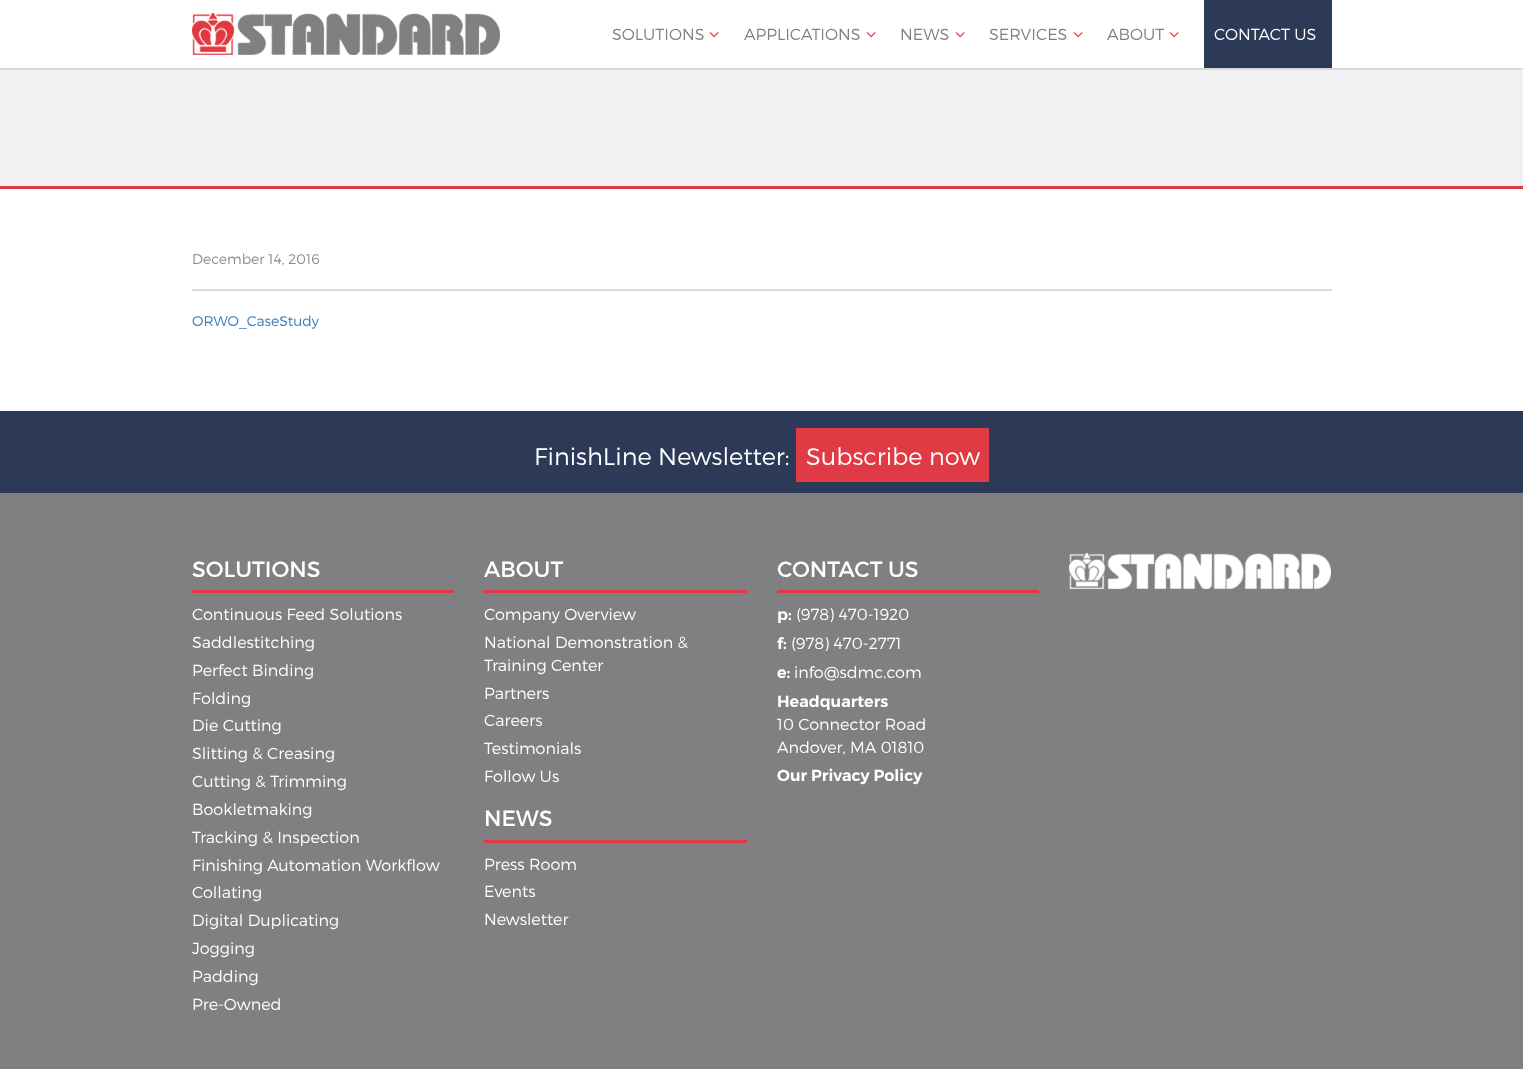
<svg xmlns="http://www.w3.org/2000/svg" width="1523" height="1069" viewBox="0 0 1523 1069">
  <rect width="100%" height="100%" fill="rgb(255,255,255)"/>
  <rect x="0" y="68" width="1523" height="2" fill="rgb(218,218,218)"/>
  <image x="192" y="13" width="308" height="42" href="pic1.png"/>
  <text x="612" y="40" font-family="Montserrat" font-size="16" font-weight="300" fill="rgb(128,128,131)">SOLUTIONS</text>
  <image x="709" y="32" width="10" height="6" href="pic2.png"/>
  <text x="744" y="40" font-family="Montserrat" font-size="16" font-weight="300" fill="rgb(128,128,131)">APPLICATIONS</text>
  <image x="866" y="32" width="10" height="6" href="pic2.png"/>
  <text x="900" y="40" font-family="Montserrat" font-size="16" font-weight="300" fill="rgb(128,128,131)">NEWS</text>
  <image x="955" y="32" width="10" height="6" href="pic2.png"/>
  <text x="989" y="40" font-family="Montserrat" font-size="16" font-weight="300" fill="rgb(128,128,131)">SERVICES</text>
  <image x="1073" y="32" width="10" height="6" href="pic2.png"/>
  <text x="1107" y="40" font-family="Montserrat" font-size="16" font-weight="300" fill="rgb(128,128,131)">ABOUT</text>
  <image x="1169" y="32" width="10" height="6" href="pic2.png"/>
  <rect x="1204" y="0" width="128" height="68" fill="rgb(44,57,87)"/>
  <text x="1214" y="40" font-family="Montserrat" font-size="16" font-weight="300" fill="rgb(255,255,255)">CONTACT US</text>
  <rect x="0" y="186" width="1523" height="3" fill="rgb(224,58,68)"/>
  <rect x="0" y="70" width="1523" height="116" fill="rgb(240,241,243)"/>
  <rect x="192" y="289" width="1140" height="2" fill="rgb(218,218,218)"/>
  <text x="192" y="264" font-family="Montserrat" font-size="14" font-weight="300" fill="rgb(140,140,140)">December 14, 2016</text>
  <text x="192" y="326" font-family="Montserrat" font-size="14" font-weight="300" fill="rgb(51,122,183)">ORWO_CaseStudy</text>
  <rect x="0" y="411" width="1523" height="82" fill="rgb(44,57,87)"/>
  <text x="534" y="465" font-family="Montserrat" font-size="24" font-weight="300" fill="rgb(255,255,255)">FinishLine Newsletter:</text>
  <rect x="796" y="428" width="193" height="54" fill="rgb(224,58,68)"/>
  <text x="806" y="465" font-family="Montserrat" font-size="24" font-weight="300" fill="rgb(255,255,255)">Subscribe now</text>
  <rect x="0" y="493" width="1523" height="576" fill="rgb(128,128,131)"/>
  <text x="192" y="577" font-family="Montserrat" font-size="22" fill="rgb(255,255,255)">SOLUTIONS</text>
  <rect x="192" y="590" width="262" height="3" fill="rgb(224,58,68)"/>
  <g font-family="Montserrat" font-size="16" font-weight="300" fill="rgb(255,255,255)">
    <text>
      <tspan x="192" y="620">Continuous Feed Solutions</tspan>
      <tspan x="192" y="648">Saddlestitching</tspan>
      <tspan x="192" y="676">Perfect Binding</tspan>
      <tspan x="192" y="704">Folding</tspan>
      <tspan x="192" y="731">Die Cutting</tspan>
      <tspan x="192" y="759">Slitting &amp; Creasing</tspan>
      <tspan x="192" y="787">Cutting &amp; Trimming</tspan>
      <tspan x="192" y="815">Bookletmaking</tspan>
      <tspan x="192" y="843">Tracking &amp; Inspection</tspan>
      <tspan x="192" y="871">Finishing Automation Workflow</tspan>
      <tspan x="192" y="898">Collating</tspan>
      <tspan x="192" y="926">Digital Duplicating</tspan>
      <tspan x="192" y="954">Jogging</tspan>
      <tspan x="192" y="982">Padding</tspan>
      <tspan x="192" y="1010">Pre-Owned</tspan>
    </text>
  </g>
  <text x="484" y="577" font-family="Montserrat" font-size="22" fill="rgb(255,255,255)">ABOUT</text>
  <rect x="484" y="590" width="263" height="3" fill="rgb(224,58,68)"/>
  <g font-family="Montserrat" font-size="16" font-weight="300" fill="rgb(255,255,255)">
    <text>
      <tspan x="484" y="620">Company Overview</tspan>
      <tspan x="484" y="648">National Demonstration &amp;</tspan>
      <tspan x="484" y="671">Training Center</tspan>
      <tspan x="484" y="699">Partners</tspan>
      <tspan x="484" y="726">Careers</tspan>
      <tspan x="484" y="754">Testimonials</tspan>
      <tspan x="484" y="782">Follow Us</tspan>
    </text>
  </g>
  <text x="484" y="826" font-family="Montserrat" font-size="22" fill="rgb(255,255,255)">NEWS</text>
  <rect x="484" y="840" width="263" height="3" fill="rgb(224,58,68)"/>
  <g font-family="Montserrat" font-size="16" font-weight="300" fill="rgb(255,255,255)">
    <text>
      <tspan x="484" y="870">Press Room</tspan>
      <tspan x="484" y="897">Events</tspan>
      <tspan x="484" y="925">Newsletter</tspan>
    </text>
  </g>
  <text x="777" y="577" font-family="Montserrat" font-size="22" fill="rgb(255,255,255)">CONTACT US</text>
  <rect x="777" y="590" width="262" height="3" fill="rgb(224,58,68)"/>
  <text x="777" y="620" font-family="Montserrat" font-size="16" font-weight="600" fill="rgb(255,255,255)">p:</text>
  <text x="796" y="620" font-family="Montserrat" font-size="16" font-weight="300" fill="rgb(255,255,255)">(978) 470-1920</text>
  <text x="777" y="649" font-family="Montserrat" font-size="16" font-weight="600" fill="rgb(255,255,255)">f:</text>
  <text x="791" y="649" font-family="Montserrat" font-size="16" font-weight="300" fill="rgb(255,255,255)">(978) 470-2771</text>
  <text x="777" y="678" font-family="Montserrat" font-size="16" font-weight="600" fill="rgb(255,255,255)">e:</text>
  <text x="794" y="678" font-family="Montserrat" font-size="16" font-weight="300" fill="rgb(255,255,255)">info@sdmc.com</text>
  <text x="777" y="707" font-family="Montserrat" font-size="16" font-weight="600" fill="rgb(255,255,255)">Headquarters</text>
  <g font-family="Montserrat" font-size="16" font-weight="300" fill="rgb(255,255,255)">
    <text>
      <tspan x="777" y="730">10 Connector Road</tspan>
      <tspan x="777" y="753">Andover, MA 01810</tspan>
    </text>
  </g>
  <text x="777" y="781" font-family="Montserrat" font-size="16" font-weight="600" fill="rgb(255,255,255)">Our Privacy Policy</text>
  <image x="1069" y="553" width="262" height="36" href="pic3.png"/>
</svg>
